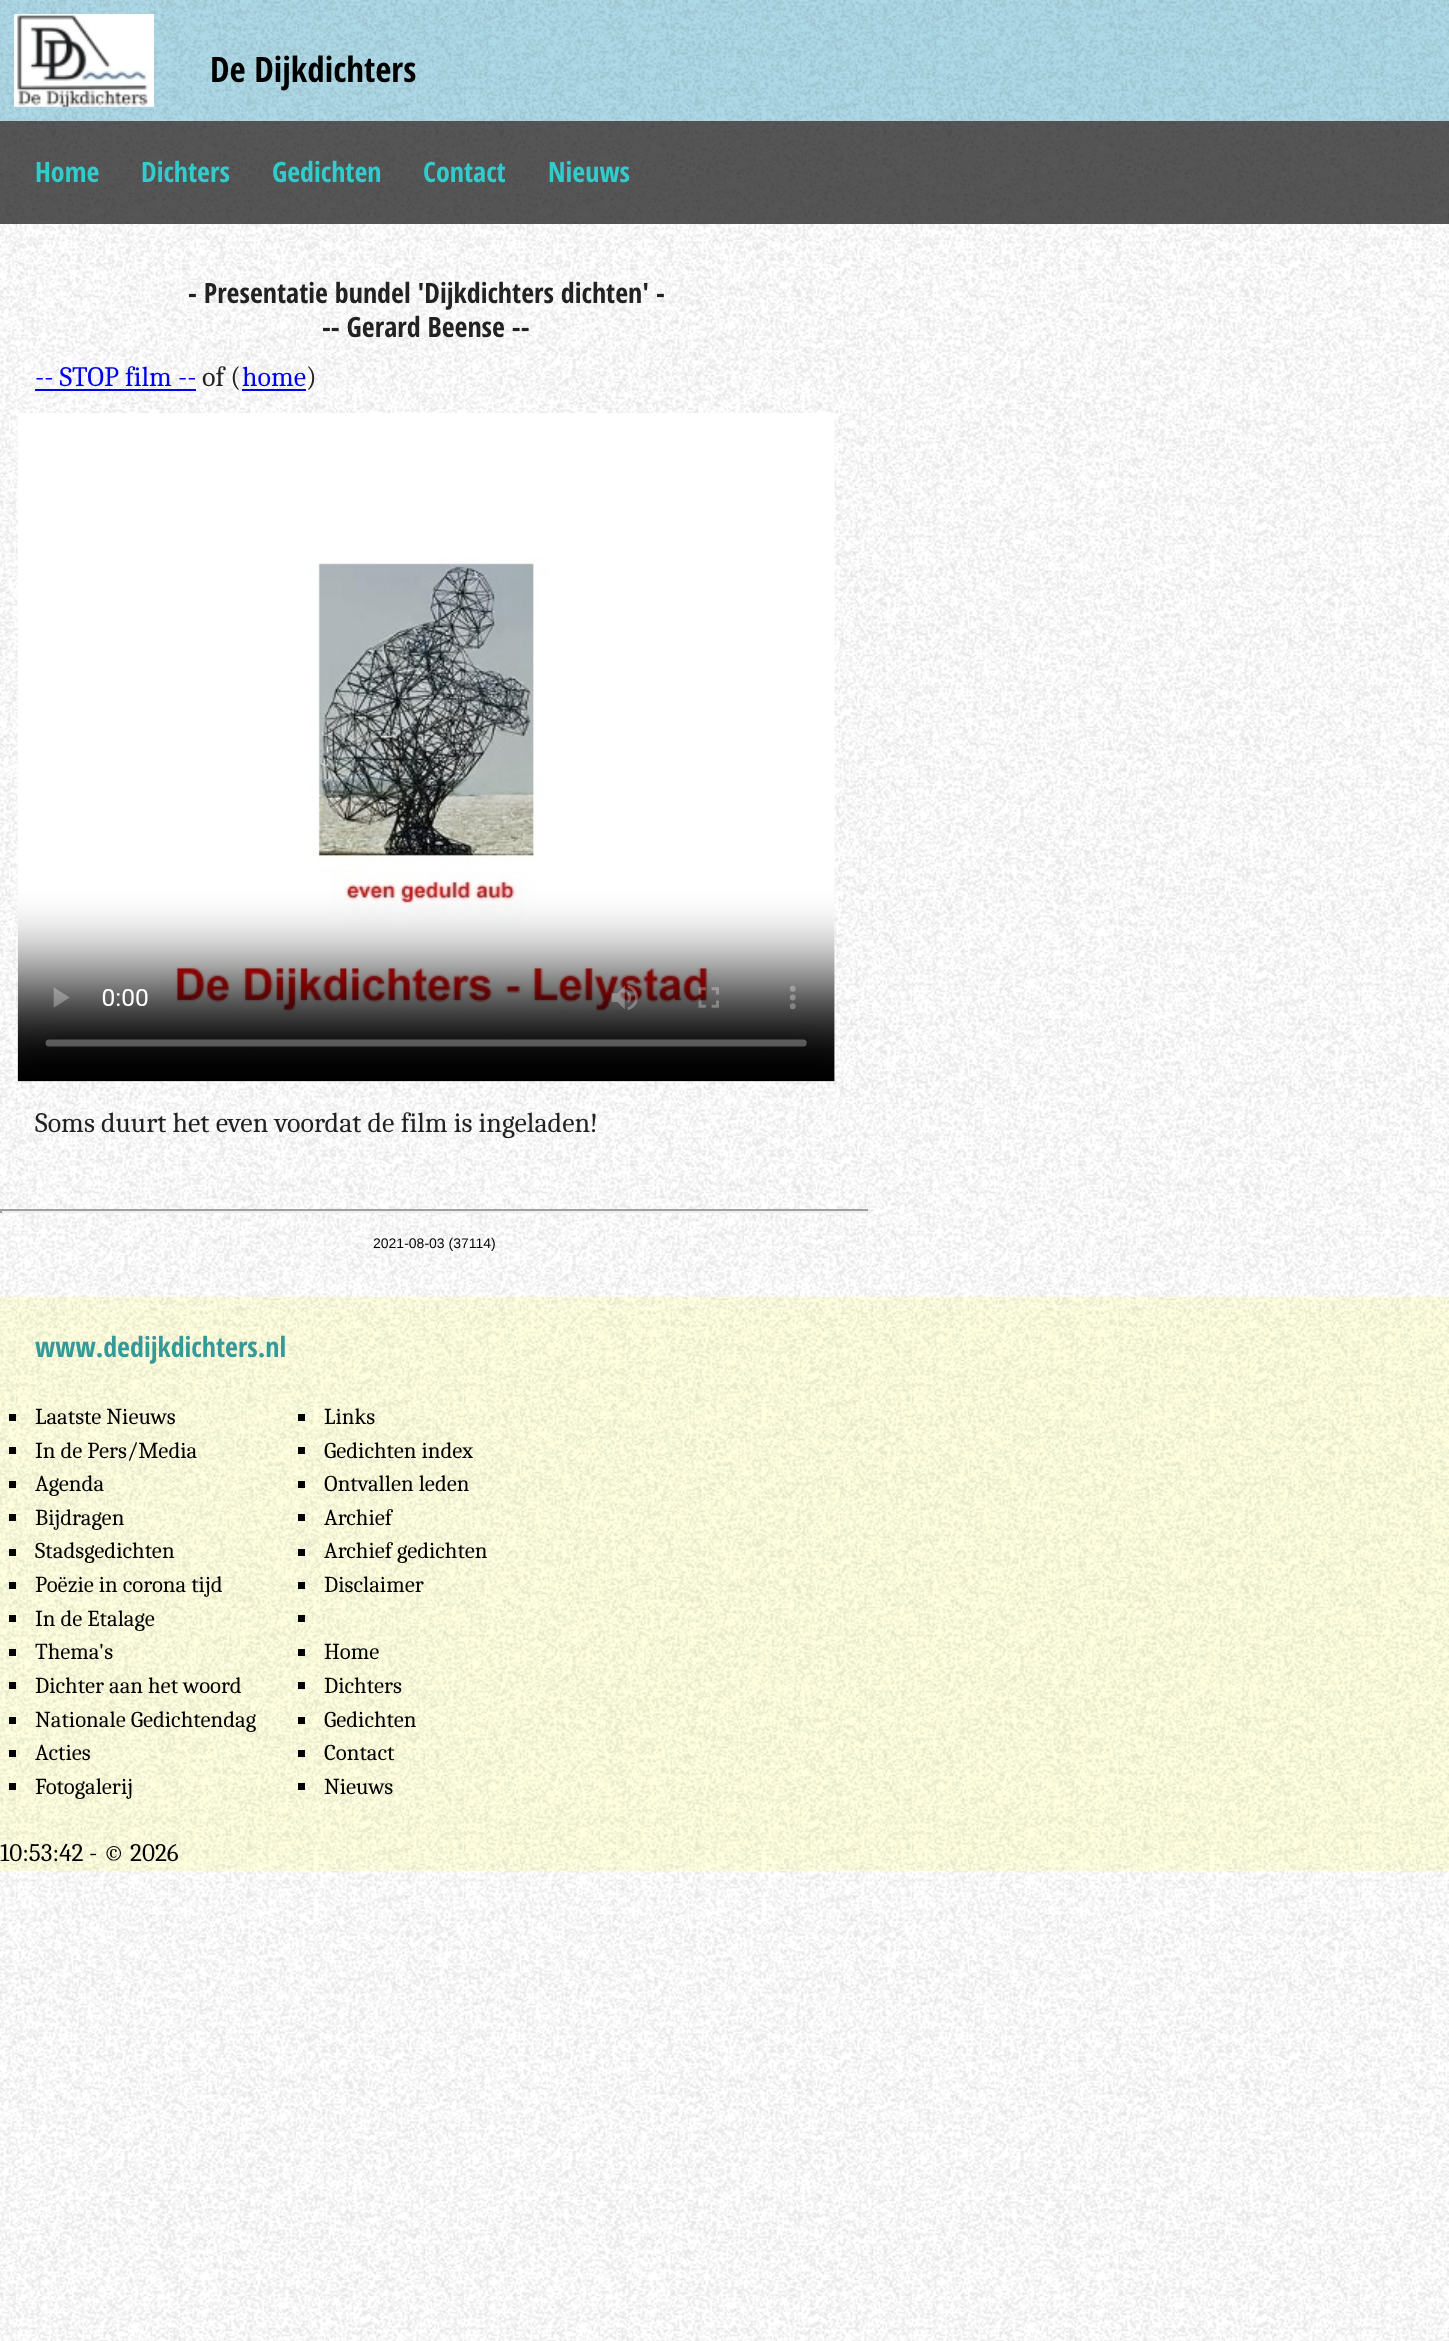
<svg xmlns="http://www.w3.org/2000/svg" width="1449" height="2341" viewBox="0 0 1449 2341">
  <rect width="100%" height="100%" fill="rgb(255,255,255)"/>
  <image x="0" y="224" width="1449" height="2117" href="pic1.png"/>
  <rect x="0" y="0" width="1449" height="121" fill="rgb(173,216,230)"/>
  <image x="0" y="0" width="1449" height="121" href="pic2.png"/>
  <image x="14" y="14" width="140" height="93" href="pic3.png"/>
  <text x="210" y="82" font-family="Open Sans Condensed" font-size="35" font-weight="bold" fill="rgb(0,0,0)">De Dijkdichters</text>
  <rect x="0" y="121" width="1449" height="103" fill="rgb(85,85,85)"/>
  <image x="0" y="120" width="1449" height="104" href="pic4.png"/>
  <g font-family="Open Sans Condensed" font-size="28" font-weight="bold" fill="rgb(51,204,204)">
    <text x="35" y="182">Home</text>
    <text x="141" y="182">Dichters</text>
    <text x="272" y="182">Gedichten</text>
    <text x="423" y="182">Contact</text>
    <text x="548" y="182">Nieuws</text>
  </g>
  <g font-family="Open Sans Condensed" font-size="28" font-weight="bold" fill="rgb(34,34,34)">
    <text x="188" y="303">- Presentatie bundel 'Dijkdichters dichten' -</text>
    <text x="322" y="337">-- Gerard Beense --</text>
  </g>
  <text x="35" y="386" font-family="Caladea" font-size="28" fill="rgb(0,0,238)">-- STOP film --</text>
  <rect x="35" y="389" width="161" height="2" fill="rgb(0,0,238)"/>
  <text x="202" y="386" font-family="Caladea" font-size="28" fill="rgb(34,34,34)">of (</text>
  <text x="242" y="386" font-family="Caladea" font-size="28" fill="rgb(0,0,238)">home</text>
  <rect x="242" y="389" width="64" height="2" fill="rgb(0,0,238)"/>
  <text x="306" y="386" font-family="Caladea" font-size="28" fill="rgb(34,34,34)">)</text>
  <image x="17" y="413" width="818" height="669" href="pic5.png"/>
  <text x="35" y="1132" font-family="Caladea" font-size="28" fill="rgb(34,34,34)">Soms duurt het even voordat de film is ingeladen!</text>
  <rect x="0" y="1209" width="870" height="2" fill="rgb(159,159,159)"/>
  <rect x="868" y="1209" width="2" height="4" fill="rgb(238,238,238)"/>
  <rect x="0" y="1211" width="870" height="2" fill="rgb(238,238,238)"/>
  <rect x="0" y="1209" width="2" height="4" fill="rgb(159,159,159)"/>
  <text x="373" y="1248" font-family="Liberation Sans" font-size="14" fill="rgb(0,0,0)">2021-08-03 (37114)</text>
  <rect x="0" y="1297" width="1449" height="574" fill="rgb(255,255,224)"/>
  <image x="0" y="1296" width="1449" height="575" href="pic6.png"/>
  <text x="35" y="1357" font-family="Open Sans Condensed" font-size="28" font-weight="bold" fill="rgb(51,153,153)">www.dedijkdichters.nl</text>
  <rect x="9" y="1414" width="7" height="7" fill="rgb(0,0,0)"/>
  <text x="35" y="1424" font-family="Caladea" font-size="22.75" fill="rgb(0,0,0)">Laatste Nieuws</text>
  <rect x="9" y="1447" width="7" height="7" fill="rgb(0,0,0)"/>
  <text x="35" y="1458" font-family="Caladea" font-size="22.75" fill="rgb(0,0,0)">In de Pers/Media</text>
  <rect x="9" y="1481" width="7" height="7" fill="rgb(0,0,0)"/>
  <text x="35" y="1491" font-family="Caladea" font-size="22.75" fill="rgb(0,0,0)">Agenda</text>
  <rect x="9" y="1514" width="7" height="7" fill="rgb(0,0,0)"/>
  <text x="35" y="1525" font-family="Caladea" font-size="22.75" fill="rgb(0,0,0)">Bijdragen</text>
  <rect x="9" y="1549" width="7" height="7" fill="rgb(0,0,0)"/>
  <text x="35" y="1558" font-family="Caladea" font-size="22.75" fill="rgb(0,0,0)">Stadsgedichten</text>
  <rect x="9" y="1582" width="7" height="7" fill="rgb(0,0,0)"/>
  <text x="35" y="1592" font-family="Caladea" font-size="22.75" fill="rgb(0,0,0)">Poëzie in corona tijd</text>
  <rect x="9" y="1615" width="7" height="7" fill="rgb(0,0,0)"/>
  <text x="35" y="1626" font-family="Caladea" font-size="22.75" fill="rgb(0,0,0)">In de Etalage</text>
  <rect x="9" y="1649" width="7" height="7" fill="rgb(0,0,0)"/>
  <text x="35" y="1659" font-family="Caladea" font-size="22.75" fill="rgb(0,0,0)">Thema's</text>
  <rect x="9" y="1682" width="7" height="7" fill="rgb(0,0,0)"/>
  <text x="35" y="1693" font-family="Caladea" font-size="22.75" fill="rgb(0,0,0)">Dichter aan het woord</text>
  <rect x="9" y="1717" width="7" height="7" fill="rgb(0,0,0)"/>
  <text x="35" y="1727" font-family="Caladea" font-size="22.75" fill="rgb(0,0,0)">Nationale Gedichtendag</text>
  <rect x="9" y="1750" width="7" height="7" fill="rgb(0,0,0)"/>
  <text x="35" y="1760" font-family="Caladea" font-size="22.75" fill="rgb(0,0,0)">Acties</text>
  <rect x="9" y="1783" width="7" height="7" fill="rgb(0,0,0)"/>
  <text x="35" y="1794" font-family="Caladea" font-size="22.75" fill="rgb(0,0,0)">Fotogalerij</text>
  <rect x="298" y="1414" width="7" height="7" fill="rgb(0,0,0)"/>
  <text x="324" y="1424" font-family="Caladea" font-size="22.75" fill="rgb(0,0,0)">Links</text>
  <rect x="298" y="1447" width="7" height="7" fill="rgb(0,0,0)"/>
  <text x="324" y="1458" font-family="Caladea" font-size="22.75" fill="rgb(0,0,0)">Gedichten index</text>
  <rect x="298" y="1481" width="7" height="7" fill="rgb(0,0,0)"/>
  <text x="324" y="1491" font-family="Caladea" font-size="22.75" fill="rgb(0,0,0)">Ontvallen leden</text>
  <rect x="298" y="1514" width="7" height="7" fill="rgb(0,0,0)"/>
  <text x="324" y="1525" font-family="Caladea" font-size="22.75" fill="rgb(0,0,0)">Archief</text>
  <rect x="298" y="1549" width="7" height="7" fill="rgb(0,0,0)"/>
  <text x="324" y="1558" font-family="Caladea" font-size="22.75" fill="rgb(0,0,0)">Archief gedichten</text>
  <rect x="298" y="1582" width="7" height="7" fill="rgb(0,0,0)"/>
  <text x="324" y="1592" font-family="Caladea" font-size="22.75" fill="rgb(0,0,0)">Disclaimer</text>
  <rect x="298" y="1615" width="7" height="7" fill="rgb(0,0,0)"/>
  <rect x="298" y="1649" width="7" height="7" fill="rgb(0,0,0)"/>
  <text x="324" y="1659" font-family="Caladea" font-size="22.75" fill="rgb(0,0,0)">Home</text>
  <rect x="298" y="1682" width="7" height="7" fill="rgb(0,0,0)"/>
  <text x="324" y="1693" font-family="Caladea" font-size="22.75" fill="rgb(0,0,0)">Dichters</text>
  <rect x="298" y="1717" width="7" height="7" fill="rgb(0,0,0)"/>
  <text x="324" y="1727" font-family="Caladea" font-size="22.75" fill="rgb(0,0,0)">Gedichten</text>
  <rect x="298" y="1750" width="7" height="7" fill="rgb(0,0,0)"/>
  <text x="324" y="1760" font-family="Caladea" font-size="22.75" fill="rgb(0,0,0)">Contact</text>
  <rect x="298" y="1783" width="7" height="7" fill="rgb(0,0,0)"/>
  <text x="324" y="1794" font-family="Caladea" font-size="22.75" fill="rgb(0,0,0)">Nieuws</text>
  <text x="0" y="1861" font-family="Caladea" font-size="25.25" fill="rgb(0,0,0)">10:53:42 - © 2026</text>
</svg>
